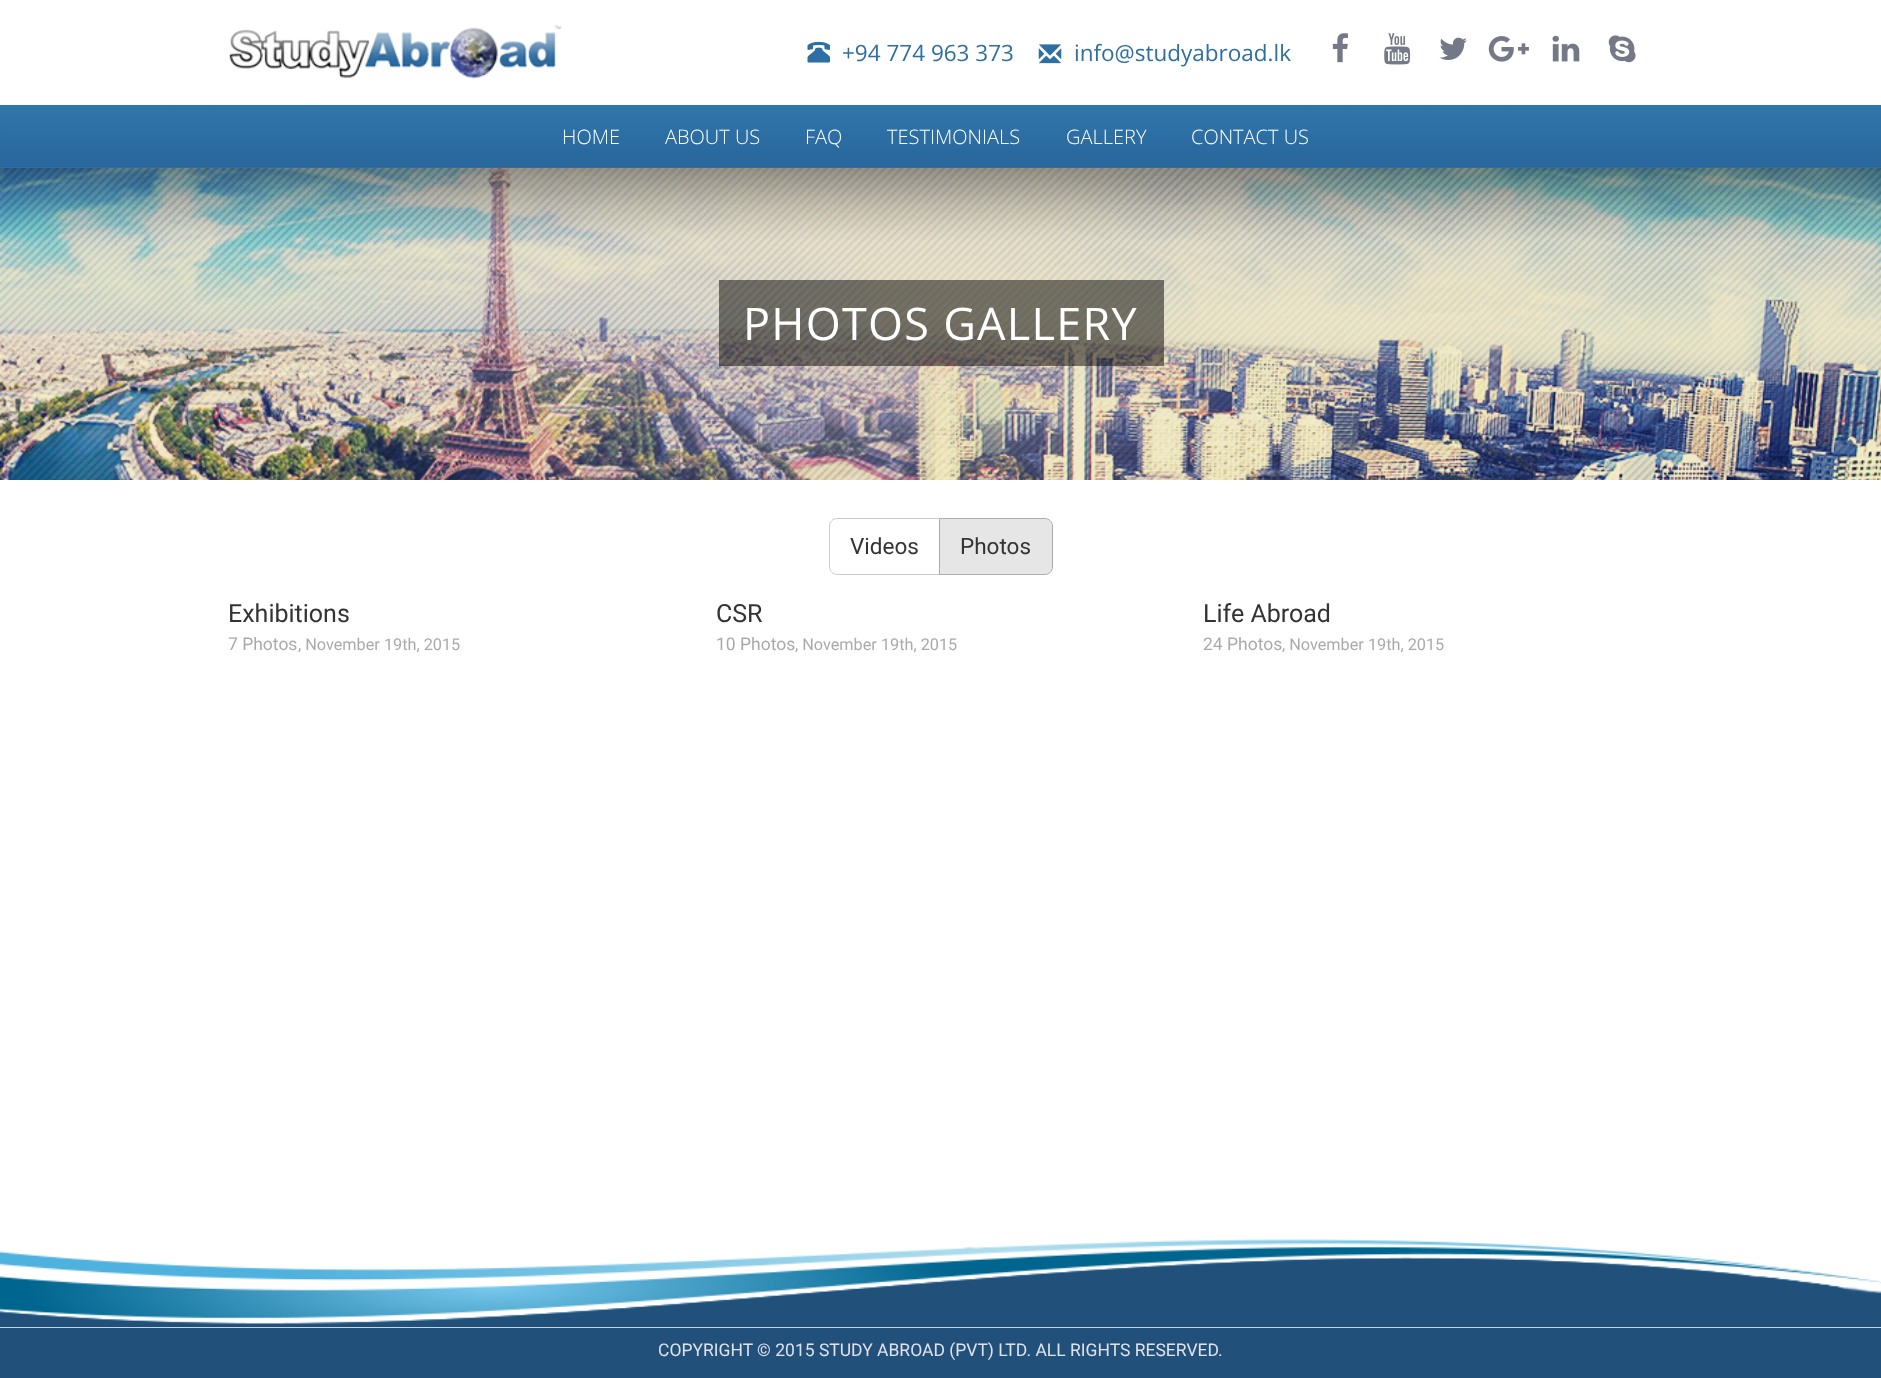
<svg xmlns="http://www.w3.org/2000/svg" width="1881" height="1378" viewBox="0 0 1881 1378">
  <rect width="100%" height="100%" fill="rgb(255,255,255)"/>
  <image x="228" y="25" width="334" height="54" href="pic1.png"/>
  <image x="807" y="41" width="23" height="22" href="pic2.png"/>
  <text x="842" y="61" font-family="Open Sans" font-size="22.5" fill="rgb(45,110,163)">+94 774 963 373</text>
  <image x="1038" y="44" width="24" height="20" href="pic3.png"/>
  <text x="1074" y="61" font-family="Open Sans" font-size="22.5" fill="rgb(45,110,163)">info@studyabroad.lk</text>
  <image x="1332" y="33" width="16" height="30" href="pic4.png"/>
  <image x="1384" y="33" width="27" height="32" href="pic5.png"/>
  <image x="1439" y="37" width="28" height="23" href="pic6.png"/>
  <image x="1488" y="36" width="41" height="26" href="pic7.png"/>
  <image x="1552" y="35" width="28" height="27" href="pic8.png"/>
  <image x="1608" y="35" width="28" height="28" href="pic9.png"/>
  <rect x="0" y="105" width="1881" height="63" fill="rgb(45,110,163)"/>
  <image x="0" y="105" width="1881" height="62" href="pic10.png"/>
  <g font-family="Open Sans" font-size="20" font-weight="300" fill="rgb(255,255,255)">
    <text x="562" y="144">HOME</text>
    <text x="665" y="144">ABOUT US</text>
    <text x="805" y="144">FAQ</text>
    <text x="887" y="144">TESTIMONIALS</text>
    <text x="1066" y="144">GALLERY</text>
    <text x="1191" y="144">CONTACT US</text>
  </g>
  <image x="0" y="168" width="1881" height="312" href="pic11.png"/>
  <rect x="719" y="280" width="445" height="86" fill="rgba(0,0,0,0.5)"/>
  <text x="743" y="340" font-family="Open Sans" font-size="45" letter-spacing="1.25" fill="rgb(255,255,255)">PHOTOS GALLERY</text>
  <path d="M837 518.5H939.5V574.5H837C833 574.5 829.5 571 829.5 567V526C829.5 522 833 518.5 837 518.5Z" fill="none" stroke="rgb(204,204,204)"/>
  <text x="850" y="554" font-family="Roboto" font-size="22.5" fill="rgb(51,51,51)">Videos</text>
  <path d="M939.5 518.5H1045C1049 518.5 1052.5 522 1052.5 526V567C1052.5 571 1049 574.5 1045 574.5H939.5Z" fill="rgb(230,230,230)" stroke="rgb(173,173,173)"/>
  <text x="960" y="554" font-family="Roboto" font-size="22.5" fill="rgb(51,51,51)">Photos</text>
  <text x="228" y="622" font-family="Roboto" font-size="25" fill="rgb(51,51,51)">Exhibitions</text>
  <text x="228" y="650" font-family="Roboto" font-size="17.5" fill="rgb(170,170,170)">7 Photos</text>
  <text x="298" y="650" font-family="Roboto" font-size="16.25" fill="rgb(170,170,170)">, November 19th, 2015</text>
  <text x="716" y="622" font-family="Roboto" font-size="25" fill="rgb(51,51,51)">CSR</text>
  <text x="716" y="650" font-family="Roboto" font-size="17.5" fill="rgb(170,170,170)">10 Photos</text>
  <text x="795" y="650" font-family="Roboto" font-size="16.25" fill="rgb(170,170,170)">, November 19th, 2015</text>
  <text x="1203" y="622" font-family="Roboto" font-size="25" fill="rgb(51,51,51)">Life Abroad</text>
  <text x="1203" y="650" font-family="Roboto" font-size="17.5" fill="rgb(170,170,170)">24 Photos</text>
  <text x="1282" y="650" font-family="Roboto" font-size="16.25" fill="rgb(170,170,170)">, November 19th, 2015</text>
  <image x="0" y="1238" width="1881" height="90" href="pic12.png"/>
  <rect x="0" y="1328" width="1881" height="50" fill="rgb(33,80,123)"/>
  <text x="658" y="1356" font-family="Roboto" font-size="17.5" fill="rgb(224,226,235)">COPYRIGHT © 2015 STUDY ABROAD (PVT) LTD. ALL RIGHTS RESERVED.</text>
</svg>
